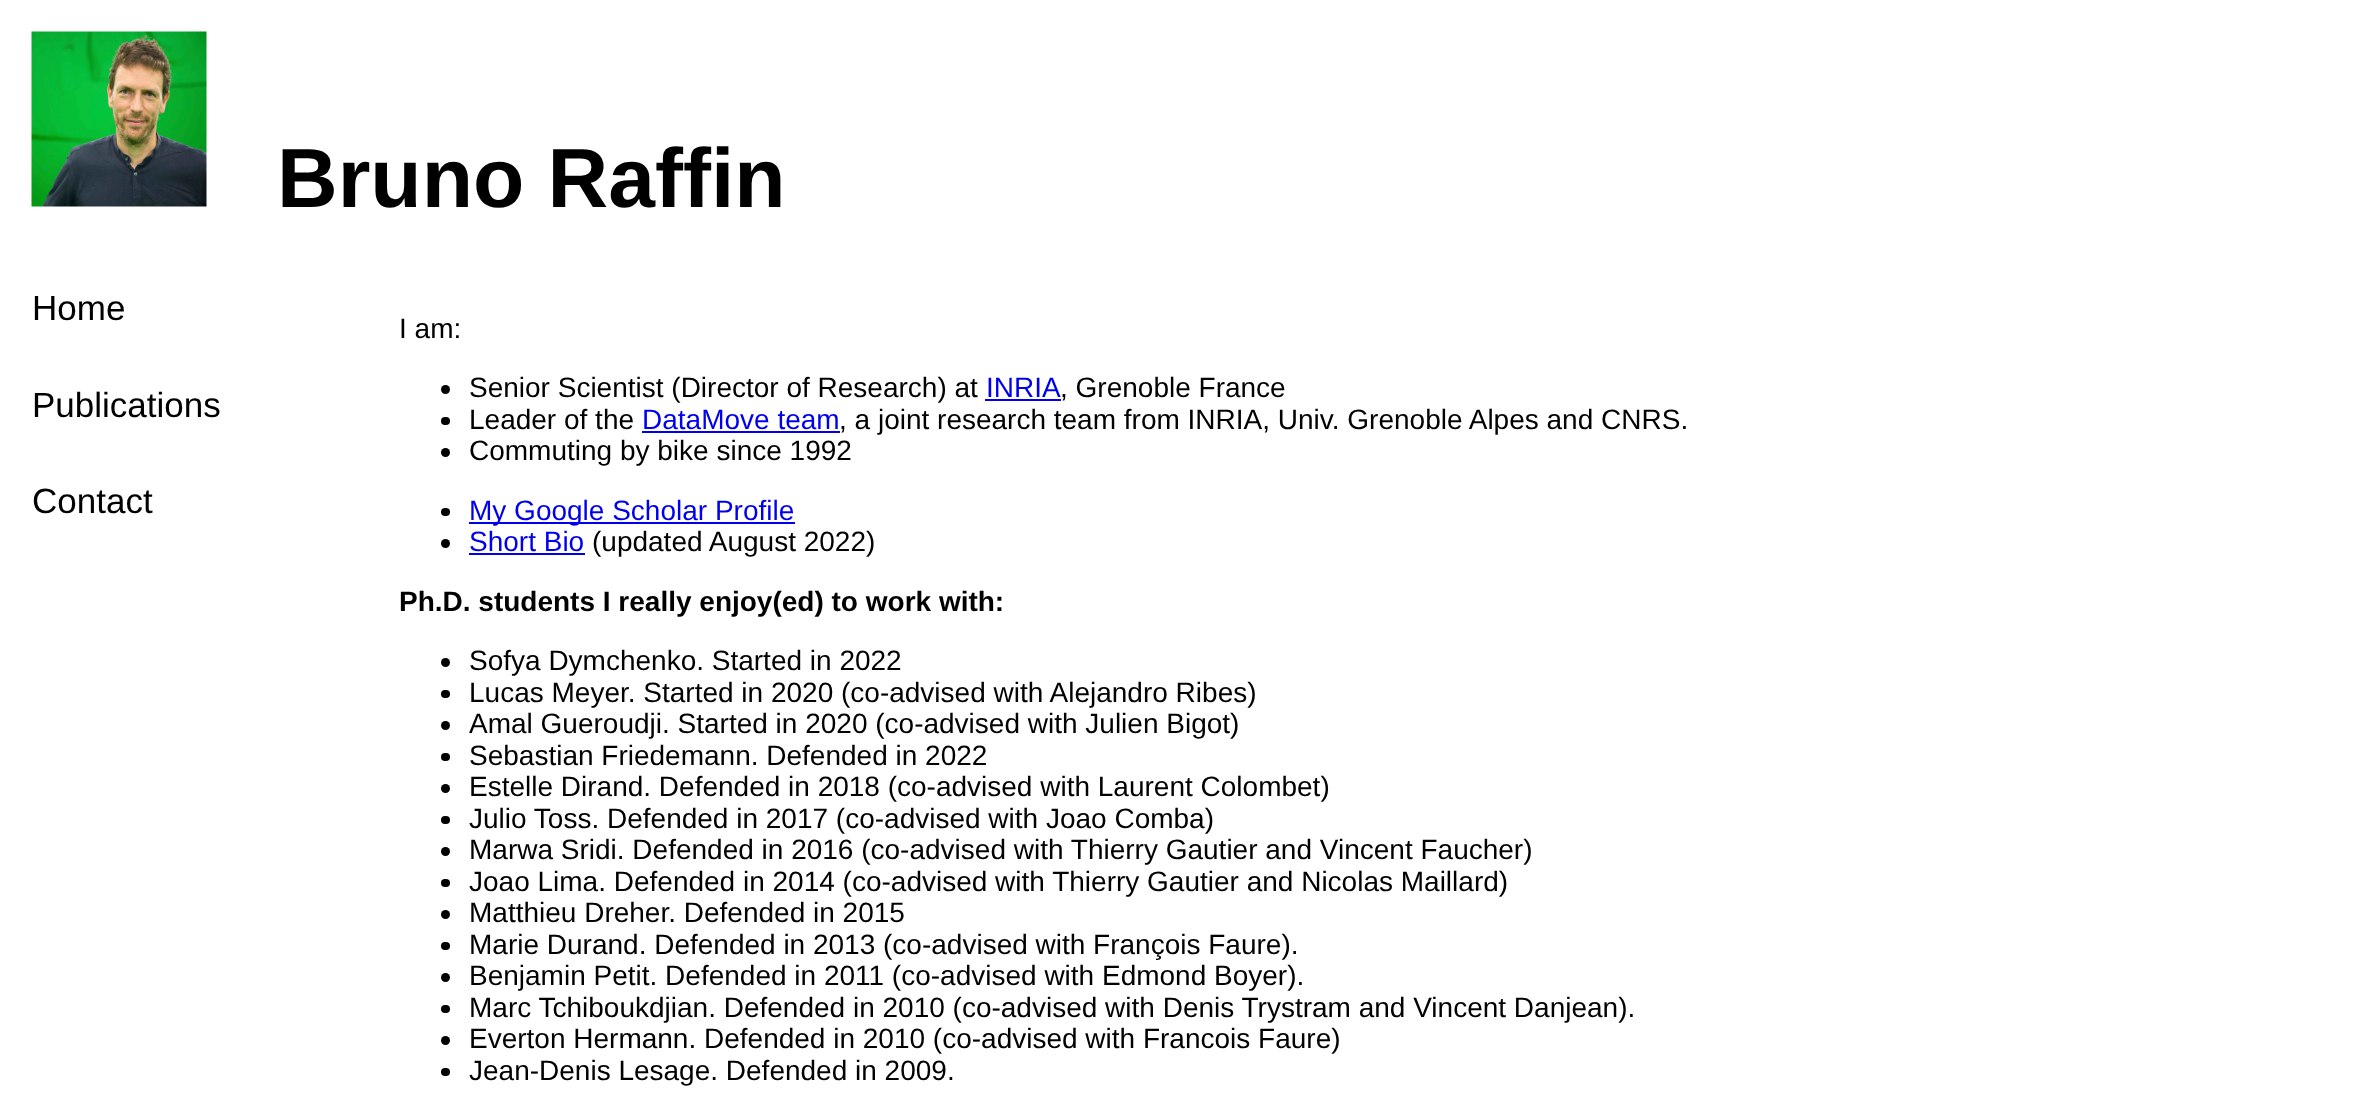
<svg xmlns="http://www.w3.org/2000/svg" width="2363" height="1096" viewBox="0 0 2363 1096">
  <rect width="100%" height="100%" fill="rgb(255,255,255)"/>
  <image x="31" y="31" width="176" height="176" href="pic1.png"/>
  <text x="277" y="207" font-family="Liberation Sans" font-size="84" font-weight="bold" fill="rgb(0,0,0)">Bruno Raffin</text>
  <g font-family="Liberation Sans" font-size="35" fill="rgb(0,0,0)">
    <text x="32" y="320">Home</text>
    <text x="32" y="417">Publications</text>
    <text x="32" y="513">Contact</text>
  </g>
  <text x="399" y="338" font-family="Liberation Sans" font-size="28" fill="rgb(0,0,0)">I am:</text>
  <circle cx="445.5" cy="389.5" r="4.5" fill="rgb(0,0,0)"/>
  <text x="469" y="397" font-family="Liberation Sans" font-size="28" fill="rgb(0,0,0)">Senior Scientist (Director of Research) at</text>
  <text x="986" y="397" font-family="Liberation Sans" font-size="28" fill="rgb(0,0,238)">INRIA</text>
  <rect x="985" y="399" width="76" height="2" fill="rgb(0,0,238)"/>
  <text x="1060" y="397" font-family="Liberation Sans" font-size="28" fill="rgb(0,0,0)">, Grenoble France</text>
  <rect x="441" y="417" width="9" height="8" rx="4" fill="rgb(0,0,0)"/>
  <text x="469" y="429" font-family="Liberation Sans" font-size="28" fill="rgb(0,0,0)">Leader of the</text>
  <text x="642" y="429" font-family="Liberation Sans" font-size="28" fill="rgb(0,0,238)">DataMove team</text>
  <rect x="642" y="431" width="198" height="2" fill="rgb(0,0,238)"/>
  <text x="839" y="429" font-family="Liberation Sans" font-size="28" fill="rgb(0,0,0)">, a joint research team from INRIA, Univ. Grenoble Alpes and CNRS.</text>
  <circle cx="445.5" cy="452.5" r="4.5" fill="rgb(0,0,0)"/>
  <text x="469" y="460" font-family="Liberation Sans" font-size="28" fill="rgb(0,0,0)">Commuting by bike since 1992</text>
  <rect x="441" y="508" width="9" height="8" rx="4" fill="rgb(0,0,0)"/>
  <rect x="469" y="522" width="326" height="2" fill="rgb(0,0,238)"/>
  <text x="469" y="520" font-family="Liberation Sans" font-size="28" fill="rgb(0,0,238)">My Google Scholar Profile</text>
  <circle cx="445.5" cy="543.5" r="4.5" fill="rgb(0,0,0)"/>
  <text x="469" y="551" font-family="Liberation Sans" font-size="28" fill="rgb(0,0,238)">Short Bio</text>
  <rect x="469" y="553" width="116" height="2" fill="rgb(0,0,238)"/>
  <text x="592" y="551" font-family="Liberation Sans" font-size="28" fill="rgb(0,0,0)">(updated August 2022)</text>
  <text x="399" y="611" font-family="Liberation Sans" font-size="28" font-weight="bold" fill="rgb(0,0,0)">Ph.D. students I really enjoy(ed) to work with:</text>
  <circle cx="445.5" cy="662.5" r="4.5" fill="rgb(0,0,0)"/>
  <text x="469" y="670" font-family="Liberation Sans" font-size="28" fill="rgb(0,0,0)">Sofya Dymchenko. Started in 2022</text>
  <rect x="441" y="690" width="9" height="8" rx="4" fill="rgb(0,0,0)"/>
  <text x="469" y="702" font-family="Liberation Sans" font-size="28" fill="rgb(0,0,0)">Lucas Meyer. Started in 2020 (co-advised with Alejandro Ribes)</text>
  <circle cx="445.5" cy="725.5" r="4.5" fill="rgb(0,0,0)"/>
  <text x="469" y="733" font-family="Liberation Sans" font-size="28" fill="rgb(0,0,0)">Amal Gueroudji. Started in 2020 (co-advised with Julien Bigot)</text>
  <rect x="441" y="753" width="9" height="8" rx="4" fill="rgb(0,0,0)"/>
  <text x="469" y="765" font-family="Liberation Sans" font-size="28" fill="rgb(0,0,0)">Sebastian Friedemann. Defended in 2022</text>
  <circle cx="445.5" cy="788.5" r="4.5" fill="rgb(0,0,0)"/>
  <text x="469" y="796" font-family="Liberation Sans" font-size="28" fill="rgb(0,0,0)">Estelle Dirand. Defended in 2018 (co-advised with Laurent Colombet)</text>
  <rect x="441" y="816" width="9" height="8" rx="4" fill="rgb(0,0,0)"/>
  <text x="469" y="828" font-family="Liberation Sans" font-size="28" fill="rgb(0,0,0)">Julio Toss. Defended in 2017 (co-advised with Joao Comba)</text>
  <circle cx="445.5" cy="851.5" r="4.5" fill="rgb(0,0,0)"/>
  <text x="469" y="859" font-family="Liberation Sans" font-size="28" fill="rgb(0,0,0)">Marwa Sridi. Defended in 2016 (co-advised with Thierry Gautier and Vincent Faucher)</text>
  <rect x="441" y="879" width="9" height="8" rx="4" fill="rgb(0,0,0)"/>
  <text x="469" y="891" font-family="Liberation Sans" font-size="28" fill="rgb(0,0,0)">Joao Lima. Defended in 2014 (co-advised with Thierry Gautier and Nicolas Maillard)</text>
  <circle cx="445.5" cy="914.5" r="4.5" fill="rgb(0,0,0)"/>
  <text x="469" y="922" font-family="Liberation Sans" font-size="28" fill="rgb(0,0,0)">Matthieu Dreher. Defended in 2015</text>
  <rect x="441" y="942" width="9" height="8" rx="4" fill="rgb(0,0,0)"/>
  <text x="469" y="954" font-family="Liberation Sans" font-size="28" fill="rgb(0,0,0)">Marie Durand. Defended in 2013 (co-advised with François Faure).</text>
  <circle cx="445.5" cy="977.5" r="4.5" fill="rgb(0,0,0)"/>
  <text x="469" y="985" font-family="Liberation Sans" font-size="28" fill="rgb(0,0,0)">Benjamin Petit. Defended in 2011 (co-advised with Edmond Boyer).</text>
  <rect x="441" y="1005" width="9" height="8" rx="4" fill="rgb(0,0,0)"/>
  <text x="469" y="1017" font-family="Liberation Sans" font-size="28" fill="rgb(0,0,0)">Marc Tchiboukdjian. Defended in 2010 (co-advised with Denis Trystram and Vincent Danjean).</text>
  <circle cx="445.5" cy="1040.5" r="4.5" fill="rgb(0,0,0)"/>
  <text x="469" y="1048" font-family="Liberation Sans" font-size="28" fill="rgb(0,0,0)">Everton Hermann. Defended in 2010 (co-advised with Francois Faure)</text>
  <rect x="441" y="1068" width="9" height="8" rx="4" fill="rgb(0,0,0)"/>
  <text x="469" y="1080" font-family="Liberation Sans" font-size="28" fill="rgb(0,0,0)">Jean-Denis Lesage. Defended in 2009.</text>
</svg>
